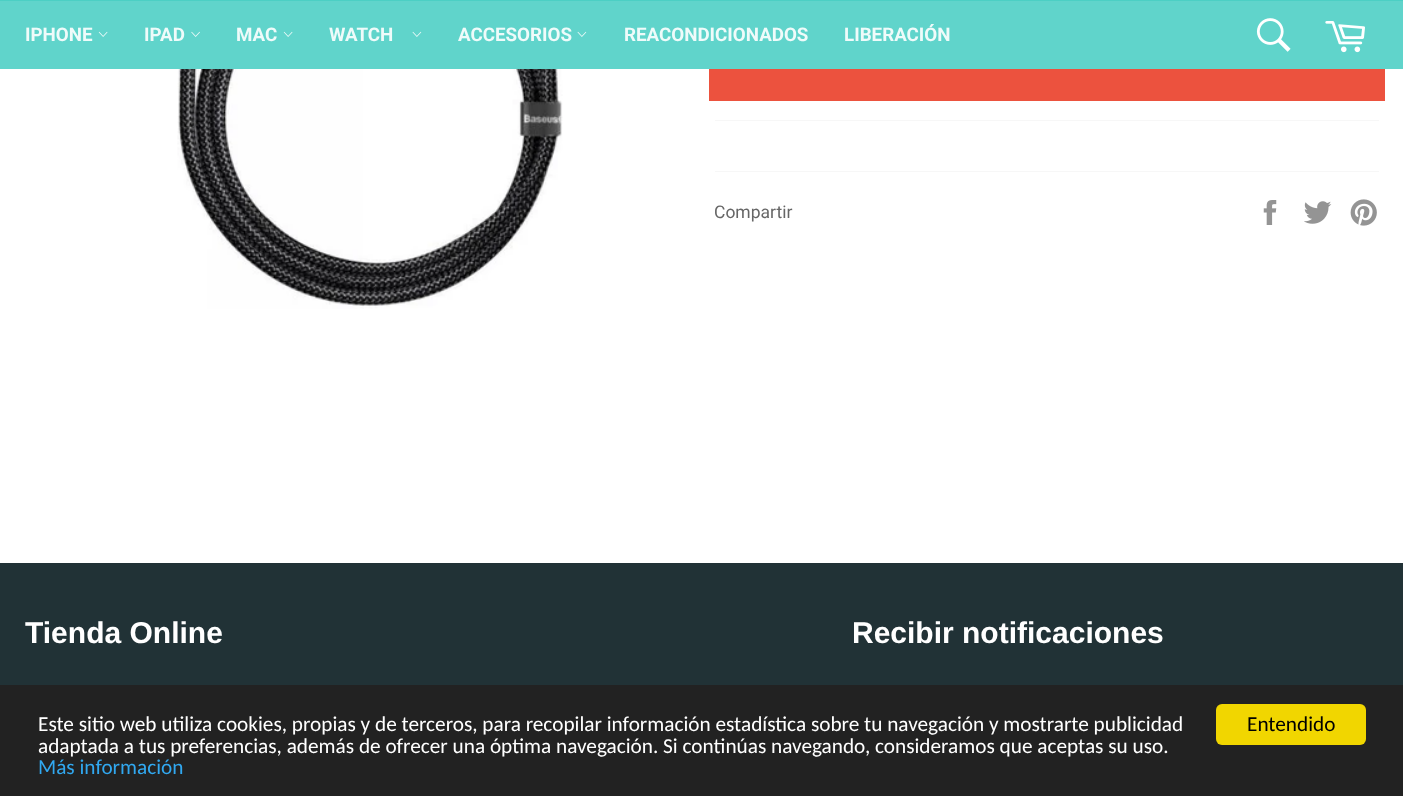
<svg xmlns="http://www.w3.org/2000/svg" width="1403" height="796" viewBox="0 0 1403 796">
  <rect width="100%" height="100%" fill="rgb(33,50,54)"/>
  <rect x="0" y="69" width="1403" height="494" fill="rgb(255,255,255)"/>
  <rect x="0" y="1" width="1403" height="68" fill="rgb(96,212,203)"/>
  <rect x="0" y="0" width="1403" height="1" fill="rgb(76,207,196)"/>
  <text x="25" y="41" font-family="Roboto" font-size="18.75" font-weight="bold" fill="rgb(239,251,250)">IPHONE</text>
  <image x="98" y="31" width="10" height="6" href="pic1.png"/>
  <text x="144" y="41" font-family="Roboto" font-size="18.75" font-weight="bold" fill="rgb(239,251,250)">IPAD</text>
  <image x="191" y="31" width="9" height="6" href="pic2.png"/>
  <text x="236" y="41" font-family="Roboto" font-size="18.75" font-weight="bold" fill="rgb(239,251,250)">MAC</text>
  <image x="283" y="31" width="10" height="6" href="pic1.png"/>
  <text x="329" y="41" font-family="Roboto" font-size="18.75" font-weight="bold" fill="rgb(239,251,250)"> WATCH</text>
  <image x="412" y="31" width="10" height="6" href="pic3.png"/>
  <text x="458" y="41" font-family="Roboto" font-size="18.75" font-weight="bold" fill="rgb(239,251,250)">ACCESORIOS</text>
  <image x="577" y="31" width="10" height="6" href="pic3.png"/>
  <g font-family="Roboto" font-size="18.75" font-weight="bold" fill="rgb(239,251,250)">
    <text x="624" y="41">REACONDICIONADOS</text>
    <text x="844" y="41">LIBERACIÓN</text>
  </g>
  <image x="1256" y="18" width="35" height="34" href="pic4.png"/>
  <image x="1325" y="21" width="40" height="32" href="pic5.png"/>
  <image x="177" y="69" width="386" height="240" href="pic6.png"/>
  <rect x="709" y="69" width="676" height="32" fill="rgb(236,82,62)"/>
  <rect x="715" y="120" width="664" height="1" fill="rgb(247,247,247)"/>
  <rect x="715" y="171" width="664" height="1" fill="rgb(247,247,247)"/>
  <text x="714" y="218" font-family="Roboto" font-size="17.5" fill="rgb(102,102,102)">Compartir</text>
  <image x="1263" y="200" width="14" height="25" href="pic7.png"/>
  <image x="1304" y="201" width="28" height="23" href="pic8.png"/>
  <image x="1350" y="199" width="27" height="27" href="pic9.png"/>
  <g font-family="Liberation Sans" font-size="30" font-weight="bold" fill="rgb(255,255,255)">
    <text x="25" y="643">Tienda Online</text>
    <text x="852" y="643">Recibir notificaciones</text>
  </g>
  <rect x="0" y="685" width="1403" height="111" fill="rgb(34,34,34)"/>
  <g font-family="Carlito" font-size="21.25" fill="rgb(255,255,255)">
    <text>
      <tspan x="38" y="731">Este sitio web utiliza cookies, propias y de terceros, para recopilar información estadística sobre tu navegación y mostrarte publicidad</tspan>
      <tspan x="38" y="753">adaptada a tus preferencias, además de ofrecer una óptima navegación. Si continúas navegando, consideramos que aceptas su uso.</tspan>
    </text>
  </g>
  <text x="38" y="774" font-family="Carlito" font-size="21.25" fill="rgb(49,168,240)">Más información</text>
  <rect x="1216" y="704" width="150" height="41" rx="6" fill="rgb(241,214,0)"/>
  <text x="1247" y="731" font-family="Carlito" font-size="21.25" fill="rgb(0,0,0)">Entendido</text>
</svg>
